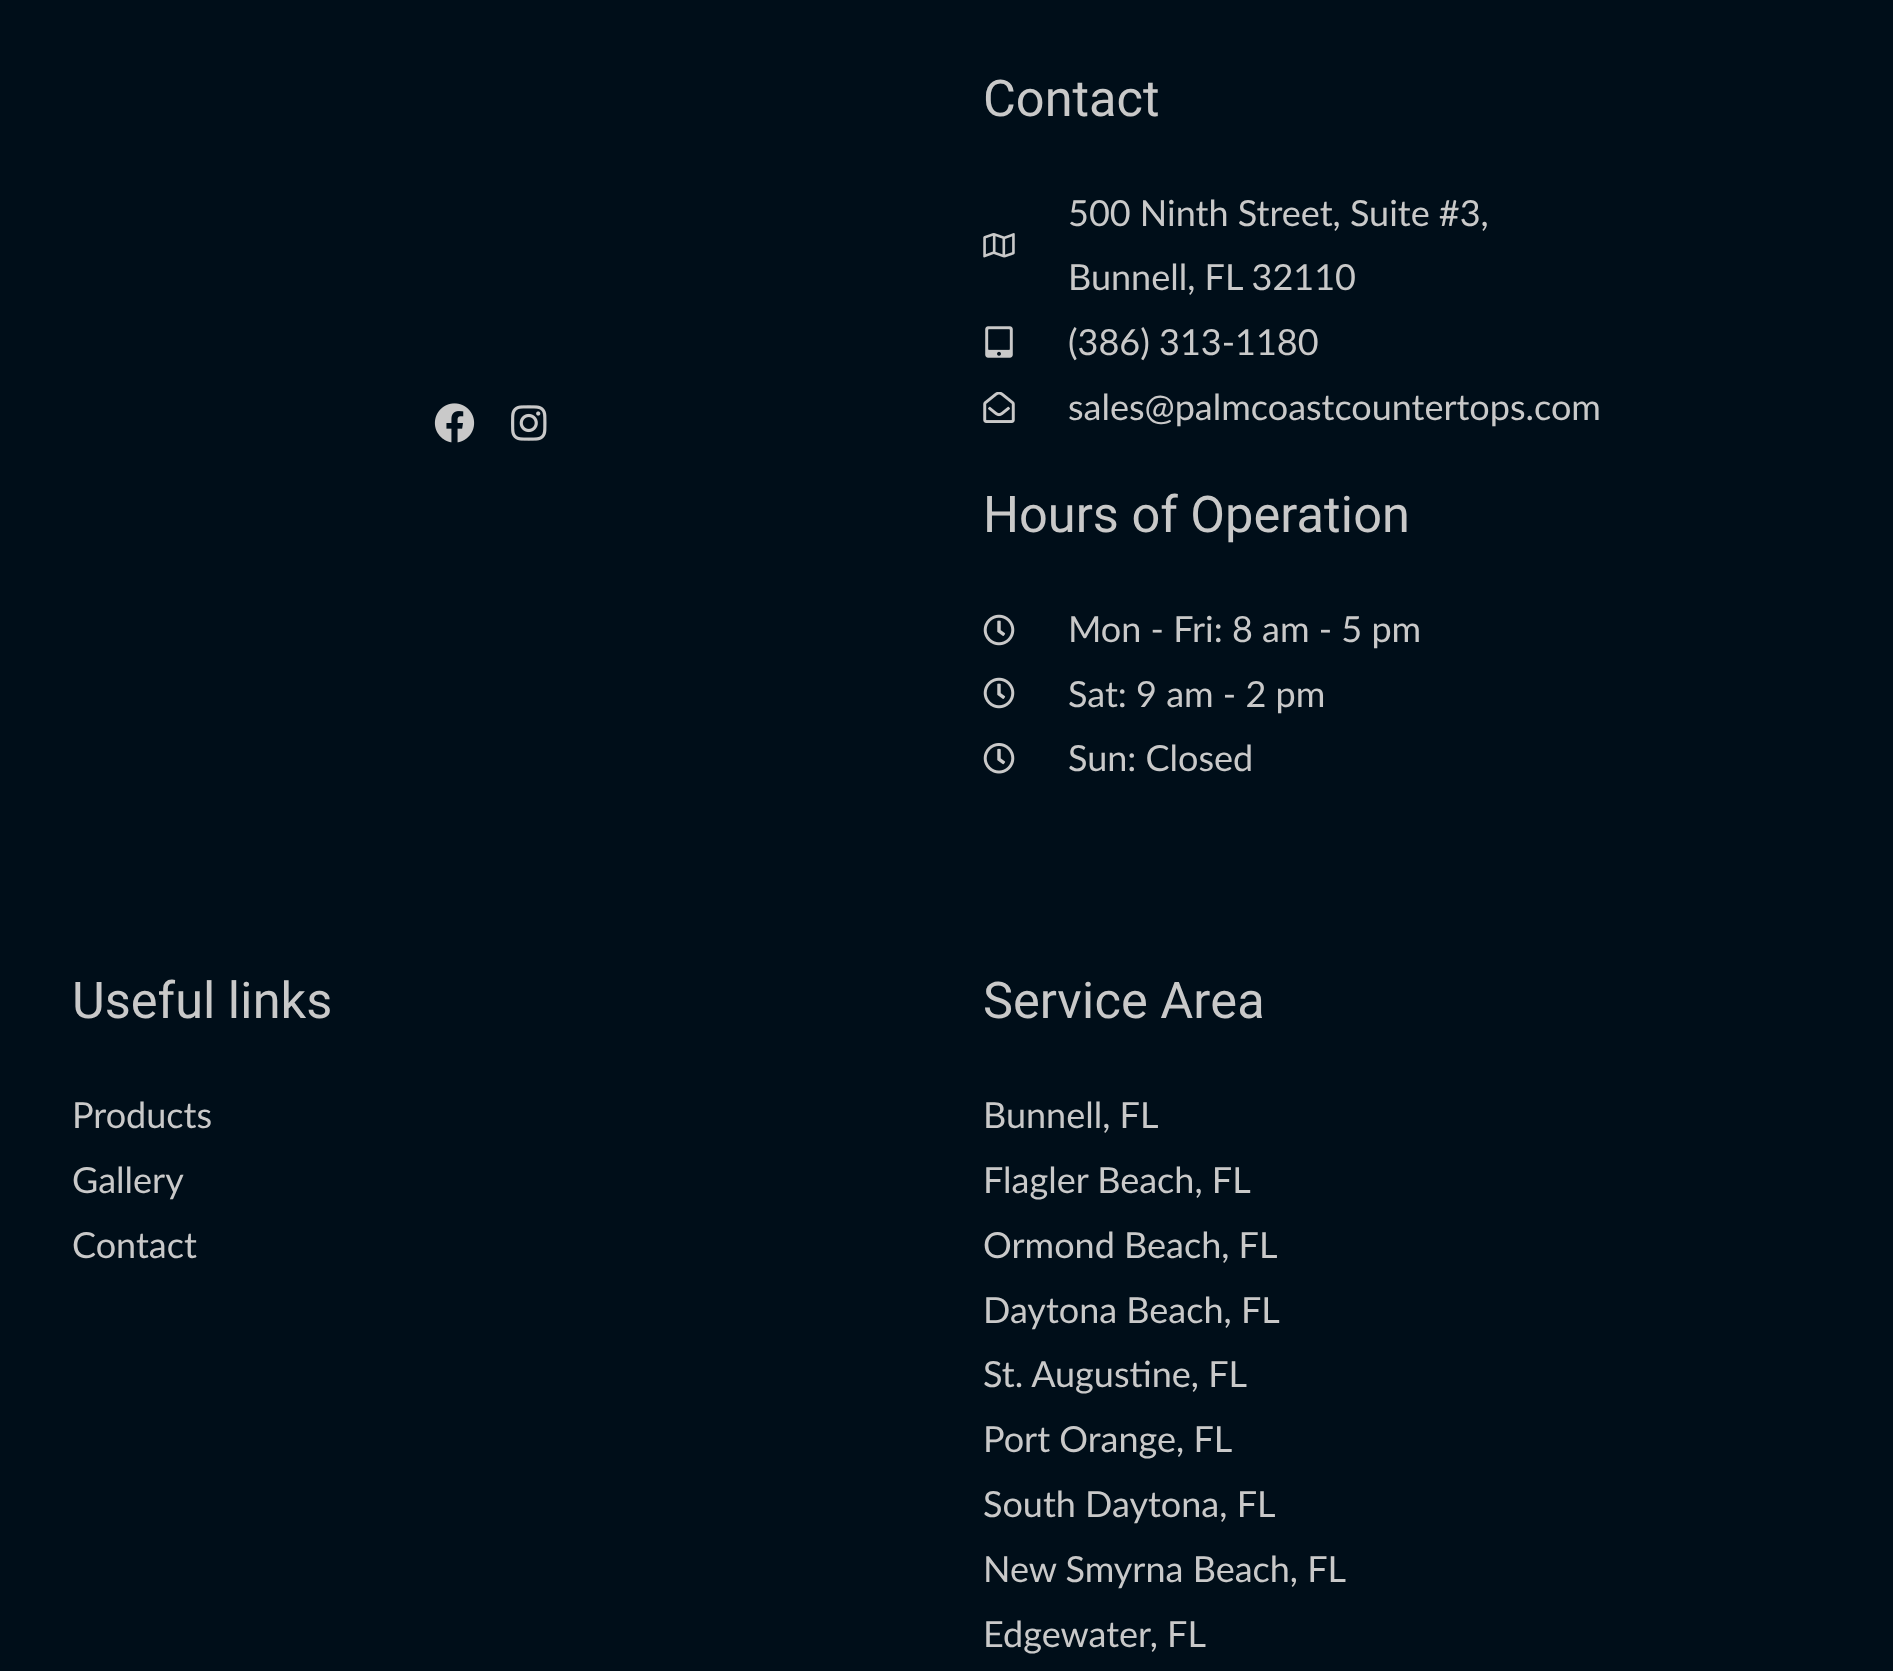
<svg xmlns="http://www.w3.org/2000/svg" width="1893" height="1671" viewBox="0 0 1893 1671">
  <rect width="100%" height="100%" fill="rgb(0,14,25)"/>
  <image x="434" y="403" width="41" height="40" href="pic1.png"/>
  <image x="511" y="405" width="36" height="36" href="pic2.png"/>
  <text x="983" y="116" font-family="Heebo" font-size="50.5" fill="rgb(201,201,201)">Contact</text>
  <image x="983" y="233" width="32" height="25" href="pic3.png"/>
  <g font-family="Lato" font-size="36" fill="rgb(201,201,201)">
    <text>
      <tspan x="1068" y="226">500 Ninth Street, Suite #3,</tspan>
      <tspan x="1068" y="290">Bunnell, FL 32110</tspan>
    </text>
  </g>
  <image x="985" y="326" width="28" height="32" href="pic4.png"/>
  <text x="1068" y="355" font-family="Lato" font-size="36" fill="rgb(201,201,201)">(386) 313-1180</text>
  <image x="983" y="392" width="32" height="31" href="pic5.png"/>
  <text x="1068" y="420" font-family="Lato" font-size="36" fill="rgb(201,201,201)">sales@palmcoastcountertops.com</text>
  <text x="983" y="532" font-family="Heebo" font-size="50.5" fill="rgb(201,201,201)">Hours of Operation</text>
  <image x="983" y="614" width="32" height="32" href="pic6.png"/>
  <text x="1068" y="642" font-family="Lato" font-size="36" fill="rgb(201,201,201)">Mon - Fri: 8 am - 5 pm</text>
  <image x="983" y="677" width="32" height="32" href="pic6.png"/>
  <text x="1068" y="707" font-family="Lato" font-size="36" fill="rgb(201,201,201)">Sat: 9 am - 2 pm</text>
  <image x="983" y="743" width="32" height="31" href="pic7.png"/>
  <text x="1068" y="771" font-family="Lato" font-size="36" fill="rgb(201,201,201)">Sun: Closed</text>
  <text x="72" y="1018" font-family="Heebo" font-size="50.5" fill="rgb(201,201,201)">Useful links</text>
  <g font-family="Lato" font-size="36" fill="rgb(201,201,201)">
    <text>
      <tspan x="72" y="1128">Products</tspan>
      <tspan x="72" y="1193">Gallery</tspan>
      <tspan x="72" y="1258">Contact</tspan>
    </text>
  </g>
  <text x="983" y="1018" font-family="Heebo" font-size="50.5" fill="rgb(201,201,201)">Service Area</text>
  <g font-family="Lato" font-size="36" fill="rgb(201,201,201)">
    <text>
      <tspan x="983" y="1128">Bunnell, FL</tspan>
      <tspan x="983" y="1193">Flagler Beach, FL</tspan>
      <tspan x="983" y="1258">Ormond Beach, FL</tspan>
      <tspan x="983" y="1323">Daytona Beach, FL</tspan>
      <tspan x="983" y="1387">St. Augustine, FL</tspan>
      <tspan x="983" y="1452">Port Orange, FL</tspan>
      <tspan x="983" y="1517">South Daytona, FL</tspan>
      <tspan x="983" y="1582">New Smyrna Beach, FL</tspan>
      <tspan x="983" y="1647">Edgewater, FL</tspan>
    </text>
  </g>
</svg>
